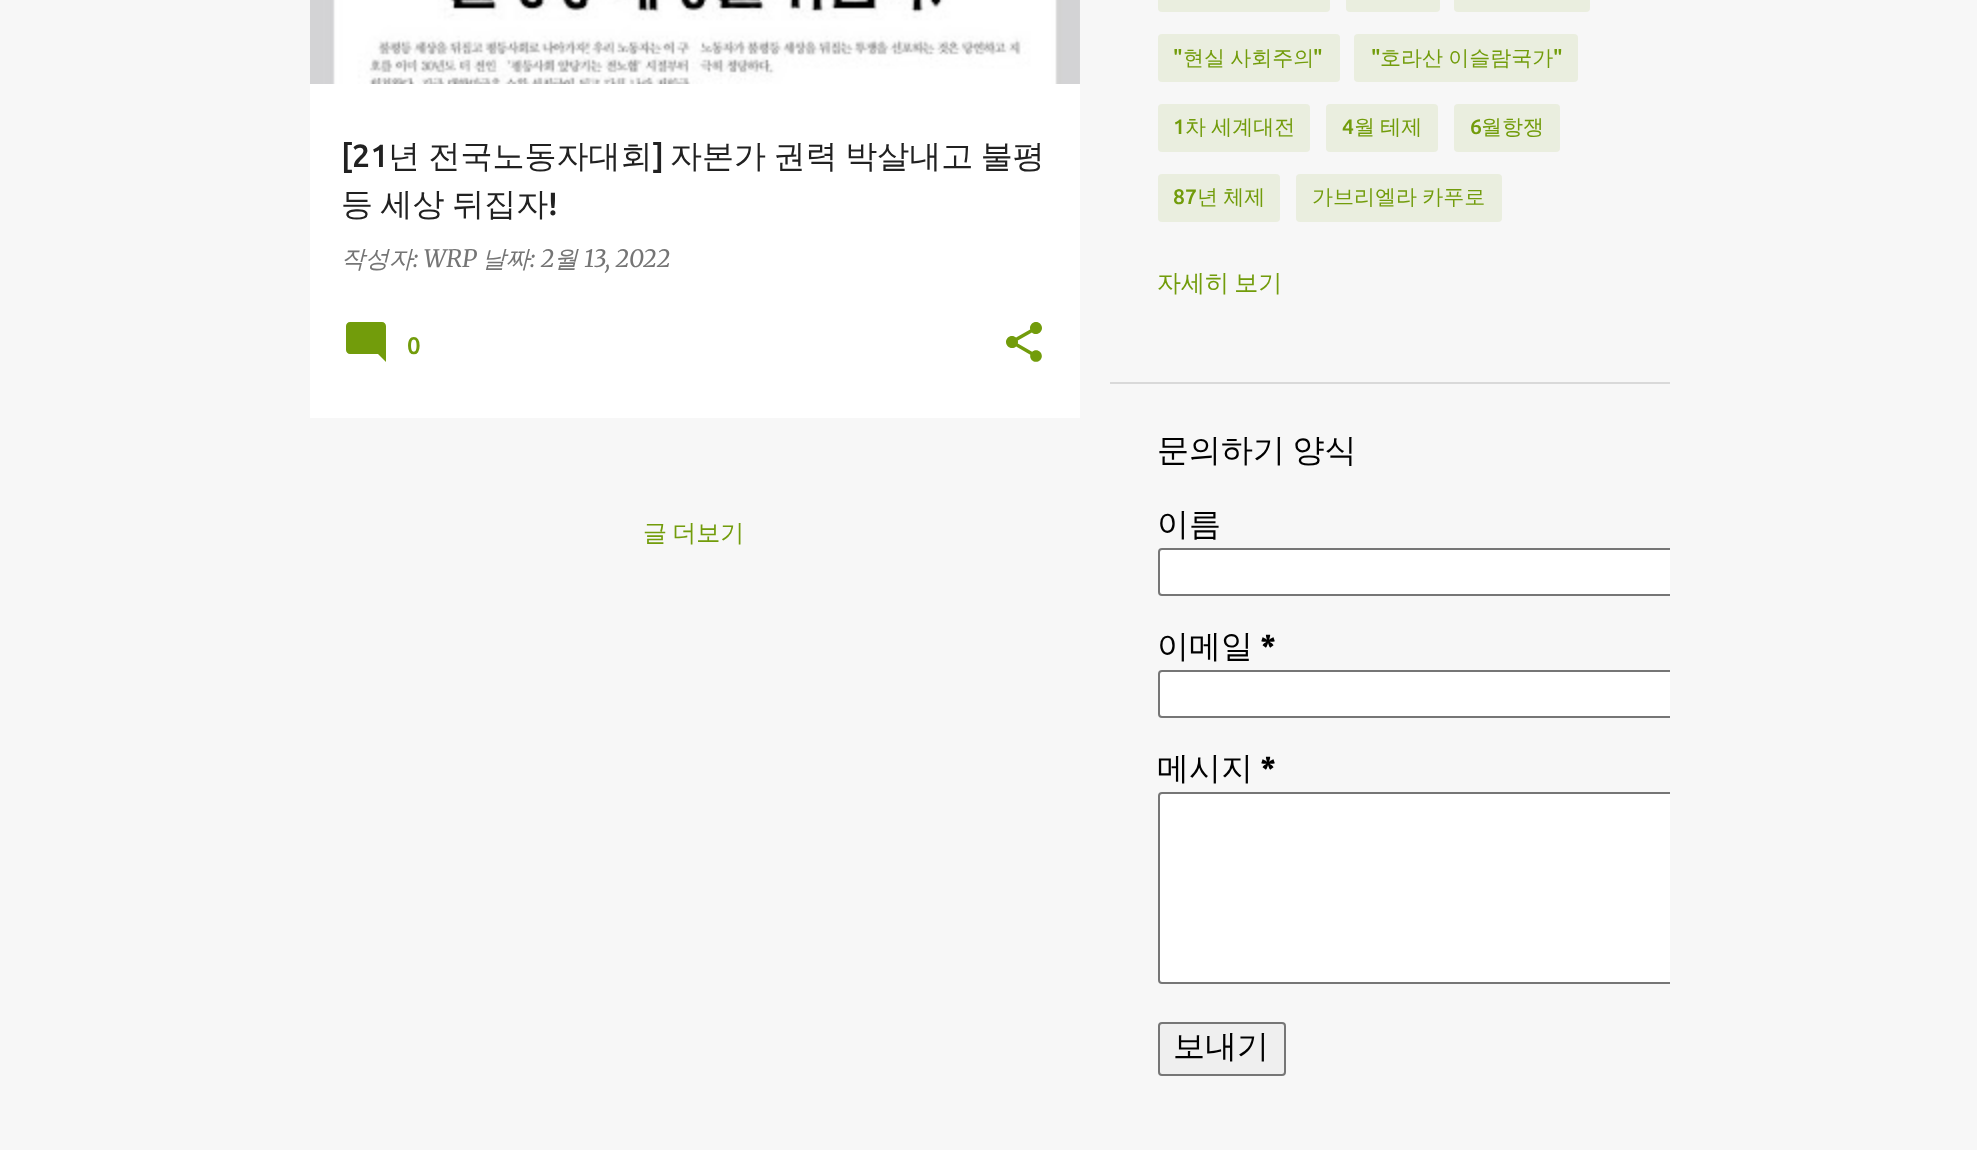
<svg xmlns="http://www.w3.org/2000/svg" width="1977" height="1150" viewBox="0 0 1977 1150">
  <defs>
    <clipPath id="clip1"><rect x="1110" y="0" width="560" height="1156"/></clipPath>
  </defs>
  <rect width="100%" height="100%" fill="rgb(247,247,247)"/>
  <rect x="310" y="84" width="770" height="334" fill="rgb(255,255,255)"/>
  <image x="310" y="0" width="770" height="84" href="pic1.png"/>
  <text x="341" y="167" font-family="Ubuntu" font-size="32" font-weight="500" fill="rgb(33,33,33)">[21</text>
  <text x="388" y="167" word-spacing="-1" font-family="WenQuanYi Zen Hei" font-size="32" font-weight="500" fill="rgb(33,33,33)">년 전국노동자대회</text>
  <text x="653" y="167" font-family="Ubuntu" font-size="32" font-weight="500" fill="rgb(33,33,33)">]</text>
  <g font-family="WenQuanYi Zen Hei" font-size="32" font-weight="500" fill="rgb(33,33,33)">
    <text x="670" y="167" word-spacing="-2">자본가 권력 박살내고 불평</text>
    <text x="341" y="215" word-spacing="-2">등 세상 뒤집자</text>
  </g>
  <text x="548" y="215" font-family="Ubuntu" font-size="32" font-weight="500" fill="rgb(33,33,33)">!</text>
  <text x="341" y="267" font-family="WenQuanYi Zen Hei" font-size="24" font-weight="500" font-style="italic" fill="rgb(117,117,117)">작성자</text>
  <text x="413" y="267" font-family="Merriweather" font-size="24" font-style="italic" fill="rgb(117,117,117)">: WRP</text>
  <text x="482" y="267" font-family="WenQuanYi Zen Hei" font-size="24" font-weight="500" font-style="italic" fill="rgb(117,117,117)">날짜</text>
  <text x="530" y="267" font-family="Merriweather" font-size="24" font-style="italic" fill="rgb(117,117,117)">: 2</text>
  <text x="554" y="267" font-family="WenQuanYi Zen Hei" font-size="24" font-weight="500" font-style="italic" fill="rgb(117,117,117)">월</text>
  <text x="584" y="267" font-family="Merriweather" font-size="24" font-style="italic" fill="rgb(117,117,117)">13, 2022</text>
  <image x="346" y="322" width="40" height="40" href="pic2.png"/>
  <text x="407" y="354" font-family="Ubuntu" font-size="24" font-weight="500" fill="rgb(114,156,11)">0</text>
  <image x="1006" y="322" width="36" height="40" href="pic3.png"/>
  <text x="643" y="541" word-spacing="-2" font-family="WenQuanYi Zen Hei" font-size="24" font-weight="500" fill="rgb(114,156,11)">글 더보기</text>
  <rect x="1158" y="-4" width="172" height="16" rx="4" fill="rgb(234,238,223)"/>
  <rect x="1346" y="-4" width="94" height="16" rx="4" fill="rgb(234,238,223)"/>
  <rect x="1454" y="-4" width="136" height="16" rx="4" fill="rgb(234,238,223)"/>
  <rect x="1158" y="34" width="182" height="48" rx="4" fill="rgb(234,238,223)"/>
  <text x="1173" y="65" font-family="Ubuntu" font-size="21" font-weight="500" fill="rgb(114,156,11)">"</text>
  <text x="1183" y="65" word-spacing="-1" font-family="WenQuanYi Zen Hei" font-size="21" font-weight="500" fill="rgb(114,156,11)">현실 사회주의</text>
  <text x="1313" y="65" font-family="Ubuntu" font-size="21" font-weight="500" fill="rgb(114,156,11)">"</text>
  <rect x="1354" y="34" width="224" height="48" rx="4" fill="rgb(234,238,223)"/>
  <text x="1371" y="65" font-family="Ubuntu" font-size="21" font-weight="500" fill="rgb(114,156,11)">"</text>
  <text x="1380" y="65" word-spacing="-1" font-family="WenQuanYi Zen Hei" font-size="21" font-weight="500" fill="rgb(114,156,11)">호라산 이슬람국가</text>
  <text x="1553" y="65" font-family="Ubuntu" font-size="21" font-weight="500" fill="rgb(114,156,11)">"</text>
  <rect x="1158" y="104" width="152" height="48" rx="4" fill="rgb(234,238,223)"/>
  <text x="1173" y="134" font-family="Ubuntu" font-size="21" font-weight="500" fill="rgb(114,156,11)">1</text>
  <text x="1185" y="134" word-spacing="-1" font-family="WenQuanYi Zen Hei" font-size="21" font-weight="500" fill="rgb(114,156,11)">차 세계대전</text>
  <rect x="1326" y="104" width="112" height="48" rx="4" fill="rgb(234,238,223)"/>
  <text x="1342" y="134" font-family="Ubuntu" font-size="21" font-weight="500" fill="rgb(114,156,11)">4</text>
  <text x="1354" y="134" word-spacing="-1" font-family="WenQuanYi Zen Hei" font-size="21" font-weight="500" fill="rgb(114,156,11)">월 테제</text>
  <rect x="1454" y="104" width="106" height="48" rx="4" fill="rgb(234,238,223)"/>
  <text x="1470" y="134" font-family="Ubuntu" font-size="21" font-weight="500" fill="rgb(114,156,11)">6</text>
  <text x="1481" y="134" font-family="WenQuanYi Zen Hei" font-size="21" font-weight="500" fill="rgb(114,156,11)">월항쟁</text>
  <rect x="1158" y="174" width="122" height="48" rx="4" fill="rgb(234,238,223)"/>
  <text x="1173" y="204" font-family="Ubuntu" font-size="21" font-weight="500" fill="rgb(114,156,11)">87</text>
  <text x="1197" y="204" word-spacing="-1" font-family="WenQuanYi Zen Hei" font-size="21" font-weight="500" fill="rgb(114,156,11)">년 체제</text>
  <rect x="1296" y="174" width="206" height="48" rx="4" fill="rgb(234,238,223)"/>
  <text x="1312" y="204" word-spacing="-1" font-family="WenQuanYi Zen Hei" font-size="21" font-weight="500" fill="rgb(114,156,11)">가브리엘라 카푸로</text>
  <text x="1157" y="291" word-spacing="-2" font-family="WenQuanYi Zen Hei" font-size="24" font-weight="500" fill="rgb(114,156,11)">자세히 보기</text>
  <rect x="1110" y="382" width="560" height="2" fill="rgb(217,217,217)"/>
  <g font-family="WenQuanYi Zen Hei" font-size="32" font-weight="500" fill="rgb(0,0,0)">
    <text x="1157" y="461" word-spacing="-2">문의하기 양식</text>
    <text x="1157" y="535">이름</text>
  </g>
  <path d="M1162 548H1670V596H1162C1160 596 1158 594 1158 592V552C1158 550 1160 548 1162 548Z" fill="rgb(255,255,255)"/>
  <g clip-path="url(#clip1)">
    <rect x="1159" y="549" width="710" height="46" rx="3" fill="none" stroke="rgb(118,118,118)" stroke-width="2"/>
  </g>
  <text x="1157" y="657" font-family="WenQuanYi Zen Hei" font-size="32" font-weight="500" fill="rgb(0,0,0)">이메일</text>
  <text x="1260" y="657" font-family="Ubuntu" font-size="32" font-weight="bold" fill="rgb(0,0,0)">*</text>
  <path d="M1162 670H1670V718H1162C1160 718 1158 716 1158 714V674C1158 672 1160 670 1162 670Z" fill="rgb(255,255,255)"/>
  <g clip-path="url(#clip1)">
    <rect x="1159" y="671" width="710" height="46" rx="3" fill="none" stroke="rgb(118,118,118)" stroke-width="2"/>
  </g>
  <text x="1157" y="779" font-family="WenQuanYi Zen Hei" font-size="32" font-weight="500" fill="rgb(0,0,0)">메시지</text>
  <text x="1260" y="779" font-family="Ubuntu" font-size="32" font-weight="bold" fill="rgb(0,0,0)">*</text>
  <path d="M1162 792H1670V984H1162C1160 984 1158 982 1158 980V796C1158 794 1160 792 1162 792Z" fill="rgb(255,255,255)"/>
  <g clip-path="url(#clip1)">
    <rect x="1159" y="793" width="540" height="190" rx="3" fill="none" stroke="rgb(118,118,118)" stroke-width="2"/>
  </g>
  <rect x="1159" y="1023" width="126" height="52" rx="3" fill="rgb(239,239,239)" stroke="rgb(118,118,118)" stroke-width="2"/>
  <text x="1173" y="1057" font-family="WenQuanYi Zen Hei" font-size="32" font-weight="500" fill="rgb(0,0,0)">보내기</text>
</svg>
